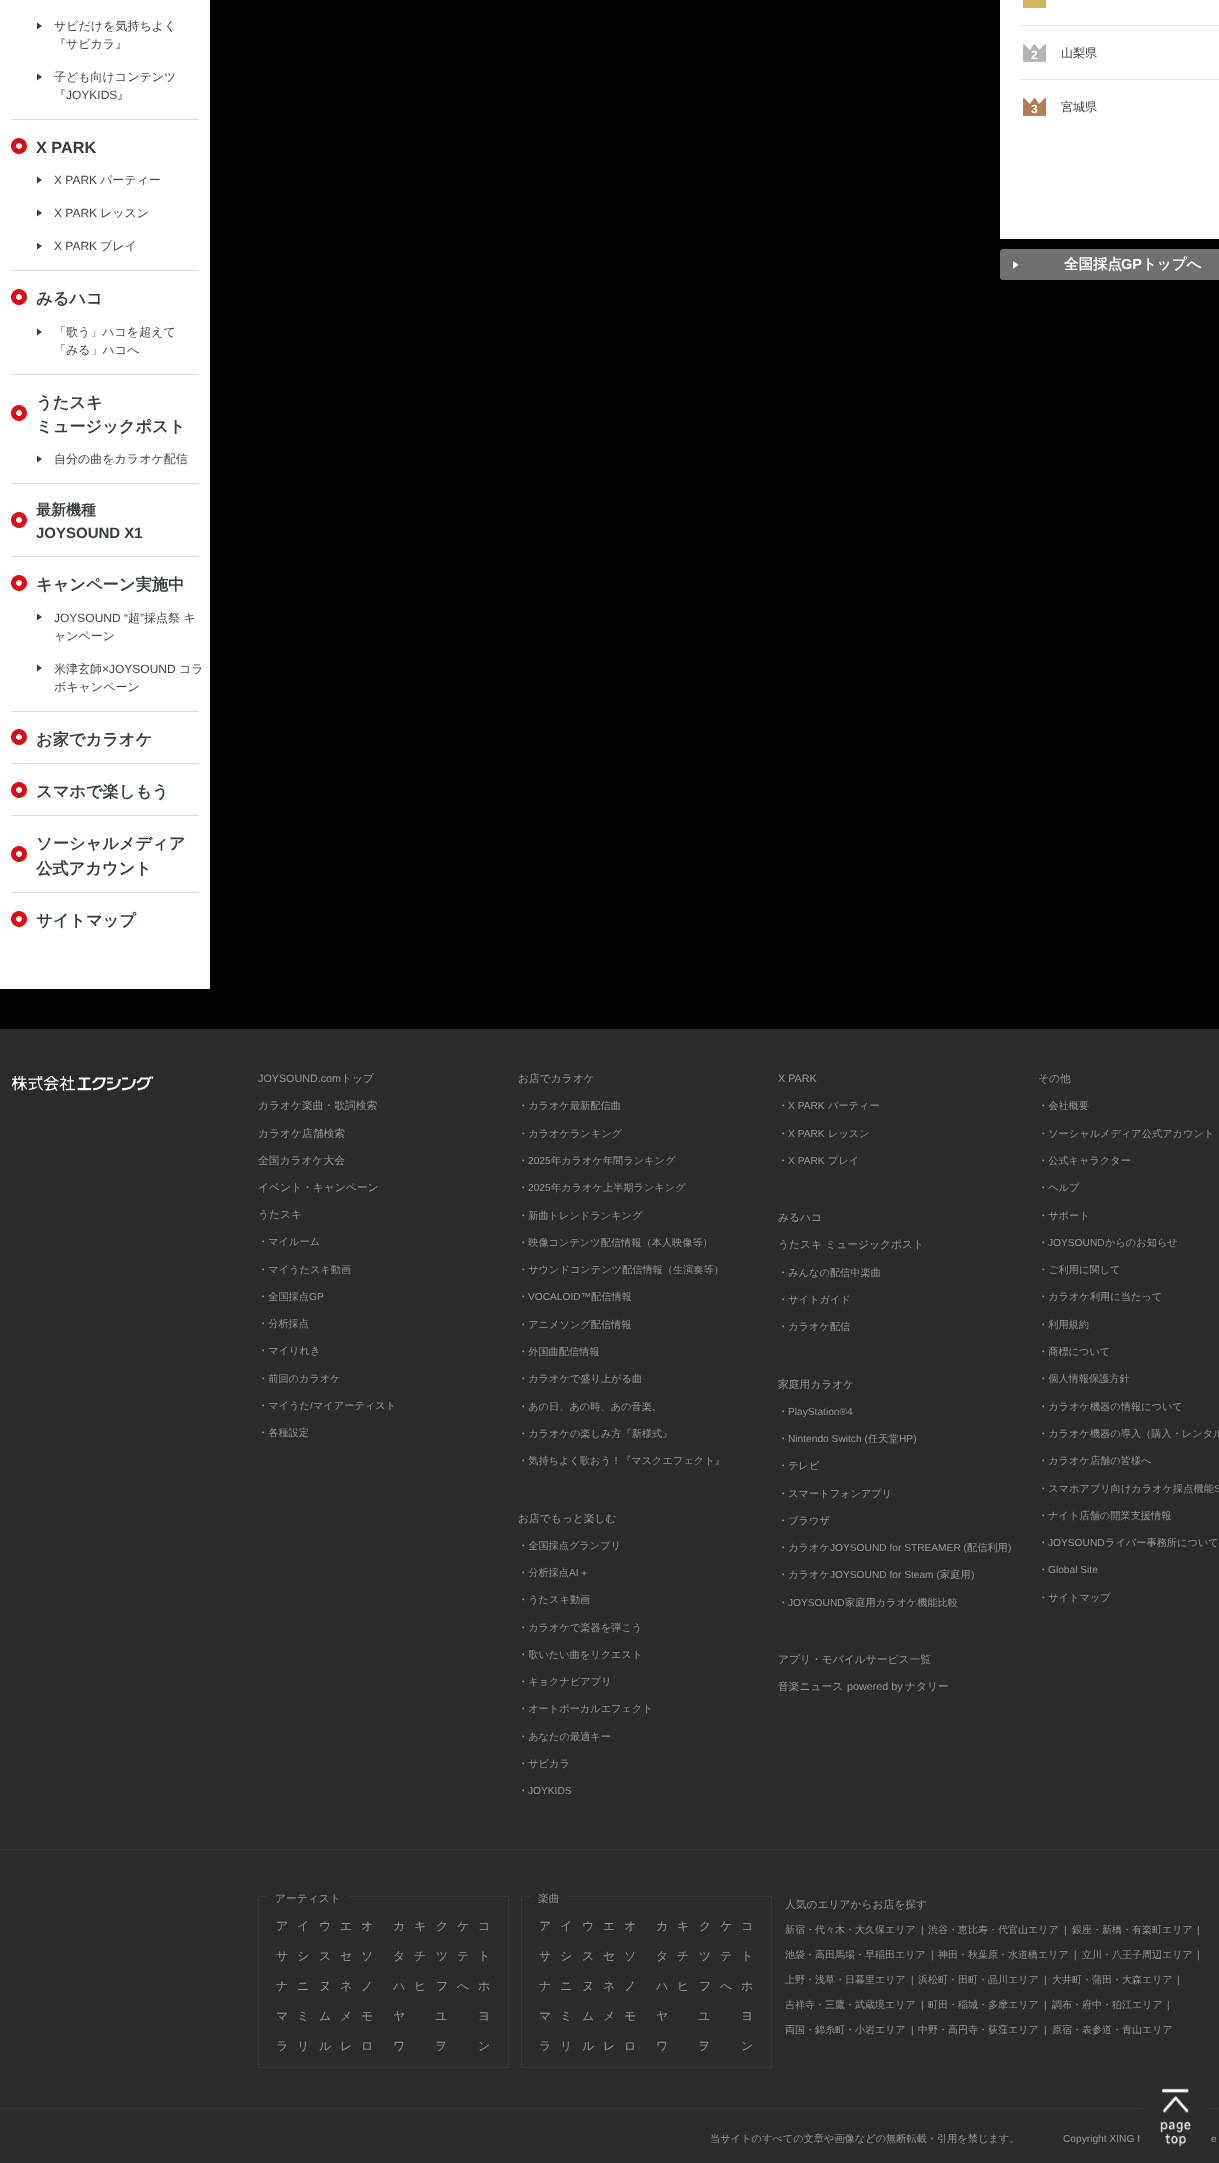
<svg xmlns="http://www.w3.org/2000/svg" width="1219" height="2163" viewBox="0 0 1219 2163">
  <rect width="100%" height="100%" fill="rgb(3,1,3)"/>
  <rect x="0" y="0" width="210" height="989" fill="rgb(255,255,255)"/>
  <image x="37" y="22" width="5" height="8" href="pic1.png"/>
  <g font-family="WenQuanYi Zen Hei" font-size="12" font-weight="500" fill="rgb(68,68,68)">
    <text>
      <tspan x="54" y="30">サビだけを気持ちよく</tspan>
      <tspan x="54" y="48">『サビカラ』</tspan>
    </text>
  </g>
  <image x="37" y="73" width="5" height="8" href="pic1.png"/>
  <g font-family="WenQuanYi Zen Hei" font-size="12" font-weight="500" fill="rgb(68,68,68)">
    <text>
      <tspan x="54" y="81">子ども向けコンテンツ</tspan>
      <tspan x="54" y="99">『</tspan>
    </text>
  </g>
  <text x="66" y="99" font-family="Liberation Sans" font-size="12" fill="rgb(68,68,68)">JOYKIDS</text>
  <text x="117" y="99" font-family="WenQuanYi Zen Hei" font-size="12" font-weight="500" fill="rgb(68,68,68)">』</text>
  <image x="11" y="138" width="16" height="16" href="pic2.png"/>
  <rect x="11" y="119" width="188" height="1" fill="rgb(223,222,212)"/>
  <text x="36" y="153" font-family="Liberation Sans" font-size="16.25" font-weight="bold" fill="rgb(51,62,63)">X PARK</text>
  <image x="37" y="176" width="5" height="8" href="pic1.png"/>
  <text x="54" y="184" font-family="Liberation Sans" font-size="12" fill="rgb(68,68,68)">X PARK</text>
  <text x="100" y="184" font-family="WenQuanYi Zen Hei" font-size="12" font-weight="500" fill="rgb(68,68,68)">パーティー</text>
  <image x="37" y="209" width="5" height="8" href="pic1.png"/>
  <text x="54" y="217" font-family="Liberation Sans" font-size="12" fill="rgb(68,68,68)">X PARK</text>
  <text x="100" y="217" font-family="WenQuanYi Zen Hei" font-size="12" font-weight="500" fill="rgb(68,68,68)">レッスン</text>
  <image x="37" y="242" width="5" height="8" href="pic1.png"/>
  <text x="54" y="250" font-family="Liberation Sans" font-size="12" fill="rgb(68,68,68)">X PARK</text>
  <text x="100" y="250" font-family="WenQuanYi Zen Hei" font-size="12" font-weight="500" fill="rgb(68,68,68)">プレイ</text>
  <image x="11" y="289" width="16" height="16" href="pic2.png"/>
  <rect x="11" y="270" width="188" height="1" fill="rgb(223,222,212)"/>
  <text x="36" y="304" font-family="WenQuanYi Zen Hei" font-size="16.25" font-weight="bold" fill="rgb(51,62,63)">みるハコ</text>
  <image x="37" y="328" width="5" height="8" href="pic1.png"/>
  <g font-family="WenQuanYi Zen Hei" font-size="12" font-weight="500" fill="rgb(68,68,68)">
    <text>
      <tspan x="54" y="336">「歌う」ハコを超えて</tspan>
      <tspan x="54" y="354">「みる」ハコへ</tspan>
    </text>
  </g>
  <image x="11" y="405" width="16" height="16" href="pic2.png"/>
  <rect x="11" y="374" width="188" height="1" fill="rgb(223,222,212)"/>
  <g font-family="WenQuanYi Zen Hei" font-size="16.25" font-weight="bold" fill="rgb(51,62,63)">
    <text>
      <tspan x="36" y="408">うたスキ</tspan>
      <tspan x="36" y="432">ミュージックポスト</tspan>
    </text>
  </g>
  <image x="37" y="455" width="5" height="8" href="pic1.png"/>
  <text x="54" y="463" font-family="WenQuanYi Zen Hei" font-size="12" font-weight="500" fill="rgb(68,68,68)">自分の曲をカラオケ配信</text>
  <image x="11" y="512" width="16" height="16" href="pic2.png"/>
  <rect x="11" y="483" width="188" height="1" fill="rgb(223,222,212)"/>
  <text x="36" y="515" font-family="WenQuanYi Zen Hei" font-size="15" font-weight="bold" fill="rgb(51,62,63)">最新機種</text>
  <text x="36" y="538" font-family="Liberation Sans" font-size="15" font-weight="bold" fill="rgb(51,62,63)">JOYSOUND X1</text>
  <image x="11" y="575" width="16" height="16" href="pic2.png"/>
  <rect x="11" y="556" width="188" height="1" fill="rgb(223,222,212)"/>
  <text x="36" y="590" font-family="WenQuanYi Zen Hei" font-size="16.25" font-weight="bold" fill="rgb(51,62,63)">キャンペーン実施中</text>
  <image x="37" y="613" width="5" height="8" href="pic1.png"/>
  <text x="54" y="622" font-family="Liberation Sans" font-size="12" fill="rgb(68,68,68)">JOYSOUND “</text>
  <text x="128" y="622" font-family="WenQuanYi Zen Hei" font-size="12" font-weight="500" fill="rgb(68,68,68)">超</text>
  <text x="140" y="622" font-family="Liberation Sans" font-size="12" fill="rgb(68,68,68)">”</text>
  <g font-family="WenQuanYi Zen Hei" font-size="12" font-weight="500" fill="rgb(68,68,68)">
    <text x="144" y="622">採点祭 キ</text>
    <text x="54" y="640">ャンペーン</text>
  </g>
  <image x="37" y="664" width="5" height="8" href="pic1.png"/>
  <text x="54" y="673" font-family="WenQuanYi Zen Hei" font-size="12" font-weight="500" fill="rgb(68,68,68)">米津玄師</text>
  <text x="102" y="673" font-family="Liberation Sans" font-size="12" fill="rgb(68,68,68)">×JOYSOUND</text>
  <g font-family="WenQuanYi Zen Hei" font-size="12" font-weight="500" fill="rgb(68,68,68)">
    <text x="179" y="673">コラ</text>
    <text x="54" y="691">ボキャンペーン</text>
  </g>
  <image x="11" y="729" width="16" height="16" href="pic2.png"/>
  <rect x="11" y="711" width="188" height="1" fill="rgb(223,222,212)"/>
  <text x="36" y="745" font-family="WenQuanYi Zen Hei" font-size="16.25" font-weight="bold" fill="rgb(51,62,63)">お家でカラオケ</text>
  <image x="11" y="782" width="16" height="16" href="pic2.png"/>
  <rect x="11" y="763" width="188" height="1" fill="rgb(223,222,212)"/>
  <text x="36" y="797" font-family="WenQuanYi Zen Hei" font-size="16.25" font-weight="bold" fill="rgb(51,62,63)">スマホで楽しもう</text>
  <image x="11" y="846" width="16" height="16" href="pic2.png"/>
  <rect x="11" y="815" width="188" height="1" fill="rgb(223,222,212)"/>
  <g font-family="WenQuanYi Zen Hei" font-size="16.25" font-weight="bold" fill="rgb(51,62,63)">
    <text>
      <tspan x="36" y="849">ソーシャルメディア</tspan>
      <tspan x="36" y="874">公式アカウント</tspan>
    </text>
  </g>
  <image x="11" y="911" width="16" height="16" href="pic2.png"/>
  <rect x="11" y="892" width="188" height="1" fill="rgb(223,222,212)"/>
  <text x="36" y="926" font-family="WenQuanYi Zen Hei" font-size="16.25" font-weight="bold" fill="rgb(51,62,63)">サイトマップ</text>
  <rect x="1000" y="0" width="219" height="239" fill="rgb(255,255,255)"/>
  <rect x="1023" y="0" width="23" height="8" fill="rgb(211,180,95)"/>
  <rect x="1020" y="25" width="199" height="1" fill="rgb(227,227,227)"/>
  <image x="1023" y="44" width="23" height="18" href="pic3.png"/>
  <text x="1031" y="59" font-family="Liberation Sans" font-size="12" font-weight="bold" fill="rgb(255,255,255)">2</text>
  <text x="1061" y="57" font-family="WenQuanYi Zen Hei" font-size="12" font-weight="500" fill="rgb(51,62,63)">山梨県</text>
  <rect x="1020" y="79" width="199" height="1" fill="rgb(227,227,227)"/>
  <image x="1023" y="98" width="23" height="18" href="pic4.png"/>
  <text x="1031" y="113" font-family="Liberation Sans" font-size="12" font-weight="bold" fill="rgb(255,255,255)">3</text>
  <text x="1061" y="111" font-family="WenQuanYi Zen Hei" font-size="12" font-weight="500" fill="rgb(51,62,63)">宮城県</text>
  <rect x="1000" y="249" width="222" height="31" rx="3" fill="rgb(112,112,112)"/>
  <image x="1013" y="261" width="6" height="8" href="pic5.png"/>
  <text x="1064" y="269" font-family="WenQuanYi Zen Hei" font-size="14.5" font-weight="bold" fill="rgb(255,255,255)">全国採点</text>
  <text x="1121" y="269" font-family="Liberation Sans" font-size="14.5" font-weight="bold" fill="rgb(255,255,255)">GP</text>
  <text x="1142" y="269" font-family="WenQuanYi Zen Hei" font-size="14.5" font-weight="bold" fill="rgb(255,255,255)">トップへ</text>
  <rect x="0" y="1029" width="1219" height="1134" fill="rgb(43,43,43)"/>
  <image x="12" y="1076" width="142" height="15" href="pic6.png"/>
  <rect x="0" y="1849" width="1219" height="1" fill="rgb(54,54,54)"/>
  <text x="258" y="1082" font-family="Liberation Sans" font-size="10.75" fill="rgb(149,149,149)">JOYSOUND.com</text>
  <g font-family="WenQuanYi Zen Hei" font-size="10.75" font-weight="500" fill="rgb(149,149,149)">
    <text x="341" y="1082">トップ</text>
    <text x="258" y="1109">カラオケ楽曲・歌詞検索</text>
    <text x="258" y="1137">カラオケ店舗検索</text>
    <text x="258" y="1164">全国カラオケ大会</text>
    <text x="258" y="1191">イベント・キャンペーン</text>
    <text x="258" y="1218">うたスキ</text>
  </g>
  <g font-family="WenQuanYi Zen Hei" font-size="10.2" font-weight="500" fill="rgb(149,149,149)">
    <text x="258" y="1245">・マイルーム</text>
    <text x="258" y="1273">・マイうたスキ動画</text>
    <text x="258" y="1300">・全国採点</text>
  </g>
  <text x="309" y="1300" font-family="Liberation Sans" font-size="10.2" fill="rgb(149,149,149)">GP</text>
  <g font-family="WenQuanYi Zen Hei" font-size="10.2" font-weight="500" fill="rgb(149,149,149)">
    <text x="258" y="1327">・分析採点</text>
    <text x="258" y="1354">・マイりれき</text>
    <text x="258" y="1382">・前回のカラオケ</text>
    <text x="258" y="1409">・マイうた マイアーティスト</text>
  </g>
  <text x="310" y="1409" font-family="Liberation Sans" font-size="10.2" fill="rgb(149,149,149)">/</text>
  <text x="258" y="1436" font-family="WenQuanYi Zen Hei" font-size="10.2" font-weight="500" fill="rgb(149,149,149)">・各種設定</text>
  <text x="518" y="1082" font-family="WenQuanYi Zen Hei" font-size="10.75" font-weight="500" fill="rgb(149,149,149)">お店でカラオケ</text>
  <g font-family="WenQuanYi Zen Hei" font-size="10.2" font-weight="500" fill="rgb(149,149,149)">
    <text x="518" y="1109">・カラオケ最新配信曲</text>
    <text x="518" y="1137">・カラオケランキング</text>
    <text x="518" y="1164">・</text>
  </g>
  <text x="528" y="1164" font-family="Liberation Sans" font-size="10.2" fill="rgb(149,149,149)">2025</text>
  <g font-family="WenQuanYi Zen Hei" font-size="10.2" font-weight="500" fill="rgb(149,149,149)">
    <text x="551" y="1164">年カラオケ年間ランキング</text>
    <text x="518" y="1191">・</text>
  </g>
  <text x="528" y="1191" font-family="Liberation Sans" font-size="10.2" fill="rgb(149,149,149)">2025</text>
  <g font-family="WenQuanYi Zen Hei" font-size="10.2" font-weight="500" fill="rgb(149,149,149)">
    <text x="551" y="1191">年カラオケ上半期ランキング</text>
    <text x="518" y="1219">・新曲トレンドランキング</text>
    <text x="518" y="1246">・映像コンテンツ配信情報（本人映像等）</text>
    <text x="518" y="1273">・サウンドコンテンツ配信情報（生演奏等）</text>
    <text x="518" y="1300">・</text>
  </g>
  <text x="528" y="1300" font-family="Liberation Sans" font-size="10.2" fill="rgb(149,149,149)">VOCALOID™</text>
  <g font-family="WenQuanYi Zen Hei" font-size="10.2" font-weight="500" fill="rgb(149,149,149)">
    <text x="591" y="1300">配信情報</text>
    <text x="518" y="1328">・アニメソング配信情報</text>
    <text x="518" y="1355">・外国曲配信情報</text>
    <text x="518" y="1382">・カラオケで盛り上がる曲</text>
    <text x="518" y="1410">・あの日、あの時、あの音楽。</text>
    <text x="518" y="1437">・カラオケの楽しみ方『新様式』</text>
    <text x="518" y="1464">・気持ちよく歌おう！『マスクエフェクト』</text>
  </g>
  <text x="518" y="1522" font-family="WenQuanYi Zen Hei" font-size="10.75" font-weight="500" fill="rgb(149,149,149)">お店でもっと楽しむ</text>
  <g font-family="WenQuanYi Zen Hei" font-size="10.2" font-weight="500" fill="rgb(149,149,149)">
    <text x="518" y="1549">・全国採点グランプリ</text>
    <text x="518" y="1576">・分析採点</text>
  </g>
  <text x="569" y="1576" font-family="Liberation Sans" font-size="10.2" fill="rgb(149,149,149)">AI</text>
  <g font-family="WenQuanYi Zen Hei" font-size="10.2" font-weight="500" fill="rgb(149,149,149)">
    <text x="579" y="1576">＋</text>
    <text x="518" y="1603">・うたスキ動画</text>
    <text x="518" y="1631">・カラオケで楽器を弾こう</text>
    <text x="518" y="1658">・歌いたい曲をリクエスト</text>
    <text x="518" y="1685">・キョクナビアプリ</text>
    <text x="518" y="1712">・オートボーカルエフェクト</text>
    <text x="518" y="1740">・あなたの最適キー</text>
    <text x="518" y="1767">・サビカラ</text>
    <text x="518" y="1794">・</text>
  </g>
  <text x="528" y="1794" font-family="Liberation Sans" font-size="10.2" fill="rgb(149,149,149)">JOYKIDS</text>
  <text x="778" y="1082" font-family="Liberation Sans" font-size="10.75" fill="rgb(149,149,149)">X PARK</text>
  <text x="778" y="1109" font-family="WenQuanYi Zen Hei" font-size="10.2" font-weight="500" fill="rgb(149,149,149)">・</text>
  <text x="788" y="1109" font-family="Liberation Sans" font-size="10.2" fill="rgb(149,149,149)">X PARK</text>
  <g font-family="WenQuanYi Zen Hei" font-size="10.2" font-weight="500" fill="rgb(149,149,149)">
    <text x="828" y="1109">パーティー</text>
    <text x="778" y="1137">・</text>
  </g>
  <text x="788" y="1137" font-family="Liberation Sans" font-size="10.2" fill="rgb(149,149,149)">X PARK</text>
  <g font-family="WenQuanYi Zen Hei" font-size="10.2" font-weight="500" fill="rgb(149,149,149)">
    <text x="828" y="1137">レッスン</text>
    <text x="778" y="1164">・</text>
  </g>
  <text x="788" y="1164" font-family="Liberation Sans" font-size="10.2" fill="rgb(149,149,149)">X PARK</text>
  <text x="828" y="1164" font-family="WenQuanYi Zen Hei" font-size="10.2" font-weight="500" fill="rgb(149,149,149)">プレイ</text>
  <g font-family="WenQuanYi Zen Hei" font-size="10.75" font-weight="500" fill="rgb(149,149,149)">
    <text x="778" y="1221">みるハコ</text>
    <text x="778" y="1248">うたスキ ミュージックポスト</text>
  </g>
  <g font-family="WenQuanYi Zen Hei" font-size="10.2" font-weight="500" fill="rgb(149,149,149)">
    <text x="778" y="1276">・みんなの配信中楽曲</text>
    <text x="778" y="1303">・サイトガイド</text>
    <text x="778" y="1330">・カラオケ配信</text>
  </g>
  <text x="778" y="1388" font-family="WenQuanYi Zen Hei" font-size="10.75" font-weight="500" fill="rgb(149,149,149)">家庭用カラオケ</text>
  <text x="778" y="1415" font-family="WenQuanYi Zen Hei" font-size="10.2" font-weight="500" fill="rgb(149,149,149)">・</text>
  <text x="788" y="1415" font-family="Liberation Sans" font-size="10.2" fill="rgb(149,149,149)">PlayStation®4</text>
  <text x="778" y="1442" font-family="WenQuanYi Zen Hei" font-size="10.2" font-weight="500" fill="rgb(149,149,149)">・</text>
  <text x="788" y="1442" font-family="Liberation Sans" font-size="10.2" fill="rgb(149,149,149)">Nintendo Switch (</text>
  <text x="868" y="1442" font-family="WenQuanYi Zen Hei" font-size="10.2" font-weight="500" fill="rgb(149,149,149)">任天堂</text>
  <text x="899" y="1442" font-family="Liberation Sans" font-size="10.2" fill="rgb(149,149,149)">HP)</text>
  <g font-family="WenQuanYi Zen Hei" font-size="10.2" font-weight="500" fill="rgb(149,149,149)">
    <text x="778" y="1469">・テレビ</text>
    <text x="778" y="1497">・スマートフォンアプリ</text>
    <text x="778" y="1524">・ブラウザ</text>
    <text x="778" y="1551">・カラオケ</text>
  </g>
  <text x="830" y="1551" font-family="Liberation Sans" font-size="10.2" fill="rgb(149,149,149)">JOYSOUND for STREAMER (</text>
  <text x="967" y="1551" font-family="WenQuanYi Zen Hei" font-size="10.2" font-weight="500" fill="rgb(149,149,149)">配信利用</text>
  <text x="1008" y="1551" font-family="Liberation Sans" font-size="10.2" fill="rgb(149,149,149)">)</text>
  <text x="778" y="1578" font-family="WenQuanYi Zen Hei" font-size="10.2" font-weight="500" fill="rgb(149,149,149)">・カラオケ</text>
  <text x="830" y="1578" font-family="Liberation Sans" font-size="10.2" fill="rgb(149,149,149)">JOYSOUND for Steam (</text>
  <text x="940" y="1578" font-family="WenQuanYi Zen Hei" font-size="10.2" font-weight="500" fill="rgb(149,149,149)">家庭用</text>
  <text x="971" y="1578" font-family="Liberation Sans" font-size="10.2" fill="rgb(149,149,149)">)</text>
  <text x="778" y="1606" font-family="WenQuanYi Zen Hei" font-size="10.2" font-weight="500" fill="rgb(149,149,149)">・</text>
  <text x="788" y="1606" font-family="Liberation Sans" font-size="10.2" fill="rgb(149,149,149)">JOYSOUND</text>
  <text x="845" y="1606" font-family="WenQuanYi Zen Hei" font-size="10.2" font-weight="500" fill="rgb(149,149,149)">家庭用カラオケ機能比較</text>
  <g font-family="WenQuanYi Zen Hei" font-size="10.75" font-weight="500" fill="rgb(149,149,149)">
    <text x="778" y="1663">アプリ・モバイルサービス一覧</text>
    <text x="778" y="1690">音楽ニュース</text>
  </g>
  <text x="847" y="1690" font-family="Liberation Sans" font-size="10.75" fill="rgb(149,149,149)">powered by</text>
  <g font-family="WenQuanYi Zen Hei" font-size="10.75" font-weight="500" fill="rgb(149,149,149)">
    <text x="905" y="1690">ナタリー</text>
    <text x="1038" y="1082">その他</text>
  </g>
  <g font-family="WenQuanYi Zen Hei" font-size="10.2" font-weight="500" fill="rgb(149,149,149)">
    <text x="1038" y="1109">・会社概要</text>
    <text x="1038" y="1137">・ソーシャルメディア公式アカウント</text>
    <text x="1038" y="1164">・公式キャラクター</text>
    <text x="1038" y="1191">・ヘルプ</text>
    <text x="1038" y="1219">・サポート</text>
    <text x="1038" y="1246">・</text>
  </g>
  <text x="1048" y="1246" font-family="Liberation Sans" font-size="10.2" fill="rgb(149,149,149)">JOYSOUND</text>
  <g font-family="WenQuanYi Zen Hei" font-size="10.2" font-weight="500" fill="rgb(149,149,149)">
    <text x="1105" y="1246">からのお知らせ</text>
    <text x="1038" y="1273">・ご利用に関して</text>
    <text x="1038" y="1300">・カラオケ利用に当たって</text>
    <text x="1038" y="1328">・利用規約</text>
    <text x="1038" y="1355">・商標について</text>
    <text x="1038" y="1382">・個人情報保護方針</text>
    <text x="1038" y="1410">・カラオケ機器の情報について</text>
    <text x="1038" y="1437">・カラオケ機器の導入（購入・レンタル</text>
    <text x="1038" y="1464">・カラオケ店舗の皆様へ</text>
    <text x="1038" y="1492">・スマホアプリ向けカラオケ採点機能</text>
  </g>
  <text x="1214" y="1492" font-family="Liberation Sans" font-size="10.2" fill="rgb(149,149,149)">S</text>
  <g font-family="WenQuanYi Zen Hei" font-size="10.2" font-weight="500" fill="rgb(149,149,149)">
    <text x="1038" y="1519">・ナイト店舗の開業支援情報</text>
    <text x="1038" y="1546">・</text>
  </g>
  <text x="1048" y="1546" font-family="Liberation Sans" font-size="10.2" fill="rgb(149,149,149)">JOYSOUND</text>
  <g font-family="WenQuanYi Zen Hei" font-size="10.2" font-weight="500" fill="rgb(149,149,149)">
    <text x="1105" y="1546">ライバー事務所について</text>
    <text x="1038" y="1573">・</text>
  </g>
  <text x="1048" y="1573" font-family="Liberation Sans" font-size="10.2" fill="rgb(149,149,149)">Global Site</text>
  <text x="1038" y="1601" font-family="WenQuanYi Zen Hei" font-size="10.2" font-weight="500" fill="rgb(149,149,149)">・サイトマップ</text>
  <rect x="0" y="2108" width="1219" height="1" fill="rgb(54,54,54)"/>
  <rect x="258.5" y="1896.5" width="250" height="171" fill="none" stroke="rgb(54,54,54)"/>
  <rect x="267" y="1896" width="82" height="1" fill="rgb(43,43,43)"/>
  <text x="275" y="1902" font-family="WenQuanYi Zen Hei" font-size="10.75" font-weight="500" fill="rgb(149,149,149)">アーティスト</text>
  <g font-family="WenQuanYi Zen Hei" font-size="12" font-weight="500" fill="rgb(149,149,149)">
    <text x="276" y="1930">ア</text>
    <text x="297" y="1930">イ</text>
    <text x="319" y="1930">ウ</text>
    <text x="340" y="1930">エ</text>
    <text x="361" y="1930">オ</text>
    <text x="393" y="1930">カ</text>
    <text x="414" y="1930">キ</text>
    <text x="436" y="1930">ク</text>
    <text x="457" y="1930">ケ</text>
    <text x="478" y="1930">コ</text>
    <text x="276" y="1960">サ</text>
    <text x="297" y="1960">シ</text>
    <text x="319" y="1960">ス</text>
    <text x="340" y="1960">セ</text>
    <text x="361" y="1960">ソ</text>
    <text x="393" y="1960">タ</text>
    <text x="414" y="1960">チ</text>
    <text x="436" y="1960">ツ</text>
    <text x="457" y="1960">テ</text>
    <text x="478" y="1960">ト</text>
    <text x="276" y="1990">ナ</text>
    <text x="297" y="1990">ニ</text>
    <text x="319" y="1990">ヌ</text>
    <text x="340" y="1990">ネ</text>
    <text x="361" y="1990">ノ</text>
    <text x="393" y="1990">ハ</text>
    <text x="414" y="1990">ヒ</text>
    <text x="436" y="1990">フ</text>
    <text x="457" y="1990">へ</text>
    <text x="478" y="1990">ホ</text>
    <text x="276" y="2020">マ</text>
    <text x="297" y="2020">ミ</text>
    <text x="319" y="2020">ム</text>
    <text x="340" y="2020">メ</text>
    <text x="361" y="2020">モ</text>
    <text x="393" y="2020">ヤ</text>
    <text x="435" y="2020">ユ</text>
    <text x="478" y="2020">ヨ</text>
    <text x="276" y="2050">ラ</text>
    <text x="297" y="2050">リ</text>
    <text x="319" y="2050">ル</text>
    <text x="340" y="2050">レ</text>
    <text x="361" y="2050">ロ</text>
    <text x="393" y="2050">ワ</text>
    <text x="435" y="2050">ヲ</text>
    <text x="478" y="2050">ン</text>
  </g>
  <rect x="521.5" y="1896.5" width="250" height="171" fill="none" stroke="rgb(54,54,54)"/>
  <rect x="530" y="1896" width="38" height="1" fill="rgb(43,43,43)"/>
  <text x="538" y="1902" font-family="WenQuanYi Zen Hei" font-size="10.75" font-weight="500" fill="rgb(149,149,149)">楽曲</text>
  <g font-family="WenQuanYi Zen Hei" font-size="12" font-weight="500" fill="rgb(149,149,149)">
    <text x="539" y="1930">ア</text>
    <text x="560" y="1930">イ</text>
    <text x="582" y="1930">ウ</text>
    <text x="603" y="1930">エ</text>
    <text x="624" y="1930">オ</text>
    <text x="656" y="1930">カ</text>
    <text x="677" y="1930">キ</text>
    <text x="699" y="1930">ク</text>
    <text x="720" y="1930">ケ</text>
    <text x="741" y="1930">コ</text>
    <text x="539" y="1960">サ</text>
    <text x="560" y="1960">シ</text>
    <text x="582" y="1960">ス</text>
    <text x="603" y="1960">セ</text>
    <text x="624" y="1960">ソ</text>
    <text x="656" y="1960">タ</text>
    <text x="677" y="1960">チ</text>
    <text x="699" y="1960">ツ</text>
    <text x="720" y="1960">テ</text>
    <text x="741" y="1960">ト</text>
    <text x="539" y="1990">ナ</text>
    <text x="560" y="1990">ニ</text>
    <text x="582" y="1990">ヌ</text>
    <text x="603" y="1990">ネ</text>
    <text x="624" y="1990">ノ</text>
    <text x="656" y="1990">ハ</text>
    <text x="677" y="1990">ヒ</text>
    <text x="699" y="1990">フ</text>
    <text x="720" y="1990">へ</text>
    <text x="741" y="1990">ホ</text>
    <text x="539" y="2020">マ</text>
    <text x="560" y="2020">ミ</text>
    <text x="582" y="2020">ム</text>
    <text x="603" y="2020">メ</text>
    <text x="624" y="2020">モ</text>
    <text x="656" y="2020">ヤ</text>
    <text x="698" y="2020">ユ</text>
    <text x="741" y="2020">ヨ</text>
    <text x="539" y="2050">ラ</text>
    <text x="560" y="2050">リ</text>
    <text x="582" y="2050">ル</text>
    <text x="603" y="2050">レ</text>
    <text x="624" y="2050">ロ</text>
    <text x="656" y="2050">ワ</text>
    <text x="698" y="2050">ヲ</text>
    <text x="741" y="2050">ン</text>
  </g>
  <text x="785" y="1908" font-family="WenQuanYi Zen Hei" font-size="10.75" font-weight="500" fill="rgb(149,149,149)">人気のエリアからお店を探す</text>
  <text x="785" y="1933" font-family="WenQuanYi Zen Hei" font-size="10" font-weight="500" fill="rgb(149,149,149)">新宿・代々木・大久保エリア</text>
  <text x="921" y="1933" font-family="Liberation Sans" font-size="10" fill="rgb(149,149,149)">|</text>
  <text x="928" y="1933" font-family="WenQuanYi Zen Hei" font-size="10" font-weight="500" fill="rgb(149,149,149)">渋谷・恵比寿・代官山エリア</text>
  <text x="1064" y="1933" font-family="Liberation Sans" font-size="10" fill="rgb(149,149,149)">|</text>
  <text x="1072" y="1933" font-family="WenQuanYi Zen Hei" font-size="10" font-weight="500" fill="rgb(149,149,149)">銀座・新橋・有楽町エリア</text>
  <text x="1197" y="1933" font-family="Liberation Sans" font-size="10" fill="rgb(149,149,149)">|</text>
  <text x="785" y="1958" font-family="WenQuanYi Zen Hei" font-size="10" font-weight="500" fill="rgb(149,149,149)">池袋・高田馬場・早稲田エリア</text>
  <text x="931" y="1958" font-family="Liberation Sans" font-size="10" fill="rgb(149,149,149)">|</text>
  <text x="938" y="1958" font-family="WenQuanYi Zen Hei" font-size="10" font-weight="500" fill="rgb(149,149,149)">神田・秋葉原・水道橋エリア</text>
  <text x="1074" y="1958" font-family="Liberation Sans" font-size="10" fill="rgb(149,149,149)">|</text>
  <text x="1082" y="1958" font-family="WenQuanYi Zen Hei" font-size="10" font-weight="500" fill="rgb(149,149,149)">立川・八王子周辺エリア</text>
  <text x="1197" y="1958" font-family="Liberation Sans" font-size="10" fill="rgb(149,149,149)">|</text>
  <text x="785" y="1983" font-family="WenQuanYi Zen Hei" font-size="10" font-weight="500" fill="rgb(149,149,149)">上野・浅草・日暮里エリア</text>
  <text x="911" y="1983" font-family="Liberation Sans" font-size="10" fill="rgb(149,149,149)">|</text>
  <text x="918" y="1983" font-family="WenQuanYi Zen Hei" font-size="10" font-weight="500" fill="rgb(149,149,149)">浜松町・田町・品川エリア</text>
  <text x="1044" y="1983" font-family="Liberation Sans" font-size="10" fill="rgb(149,149,149)">|</text>
  <text x="1052" y="1983" font-family="WenQuanYi Zen Hei" font-size="10" font-weight="500" fill="rgb(149,149,149)">大井町・蒲田・大森エリア</text>
  <text x="1177" y="1983" font-family="Liberation Sans" font-size="10" fill="rgb(149,149,149)">|</text>
  <text x="785" y="2008" font-family="WenQuanYi Zen Hei" font-size="10" font-weight="500" fill="rgb(149,149,149)">吉祥寺・三鷹・武蔵境エリア</text>
  <text x="921" y="2008" font-family="Liberation Sans" font-size="10" fill="rgb(149,149,149)">|</text>
  <text x="928" y="2008" font-family="WenQuanYi Zen Hei" font-size="10" font-weight="500" fill="rgb(149,149,149)">町田・稲城・多摩エリア</text>
  <text x="1044" y="2008" font-family="Liberation Sans" font-size="10" fill="rgb(149,149,149)">|</text>
  <text x="1052" y="2008" font-family="WenQuanYi Zen Hei" font-size="10" font-weight="500" fill="rgb(149,149,149)">調布・府中・狛江エリア</text>
  <text x="1167" y="2008" font-family="Liberation Sans" font-size="10" fill="rgb(149,149,149)">|</text>
  <text x="785" y="2033" font-family="WenQuanYi Zen Hei" font-size="10" font-weight="500" fill="rgb(149,149,149)">両国・錦糸町・小岩エリア</text>
  <text x="911" y="2033" font-family="Liberation Sans" font-size="10" fill="rgb(149,149,149)">|</text>
  <text x="918" y="2033" font-family="WenQuanYi Zen Hei" font-size="10" font-weight="500" fill="rgb(149,149,149)">中野・高円寺・荻窪エリア</text>
  <text x="1044" y="2033" font-family="Liberation Sans" font-size="10" fill="rgb(149,149,149)">|</text>
  <text x="1052" y="2033" font-family="WenQuanYi Zen Hei" font-size="10" font-weight="500" fill="rgb(149,149,149)">原宿・表参道・青山エリア</text>
  <text x="710" y="2142" font-family="WenQuanYi Zen Hei" font-size="10.2" font-weight="500" fill="rgb(149,149,149)">当サイトのすべての文章や画像などの無断転載・引用を禁じます。</text>
  <g font-family="Liberation Sans" font-size="10.2" fill="rgb(149,149,149)">
    <text x="1063" y="2142">Copyright XING I</text>
    <text x="1211" y="2142">e</text>
  </g>
  <image x="1143" y="2088" width="66" height="59" href="pic7.png"/>
</svg>
